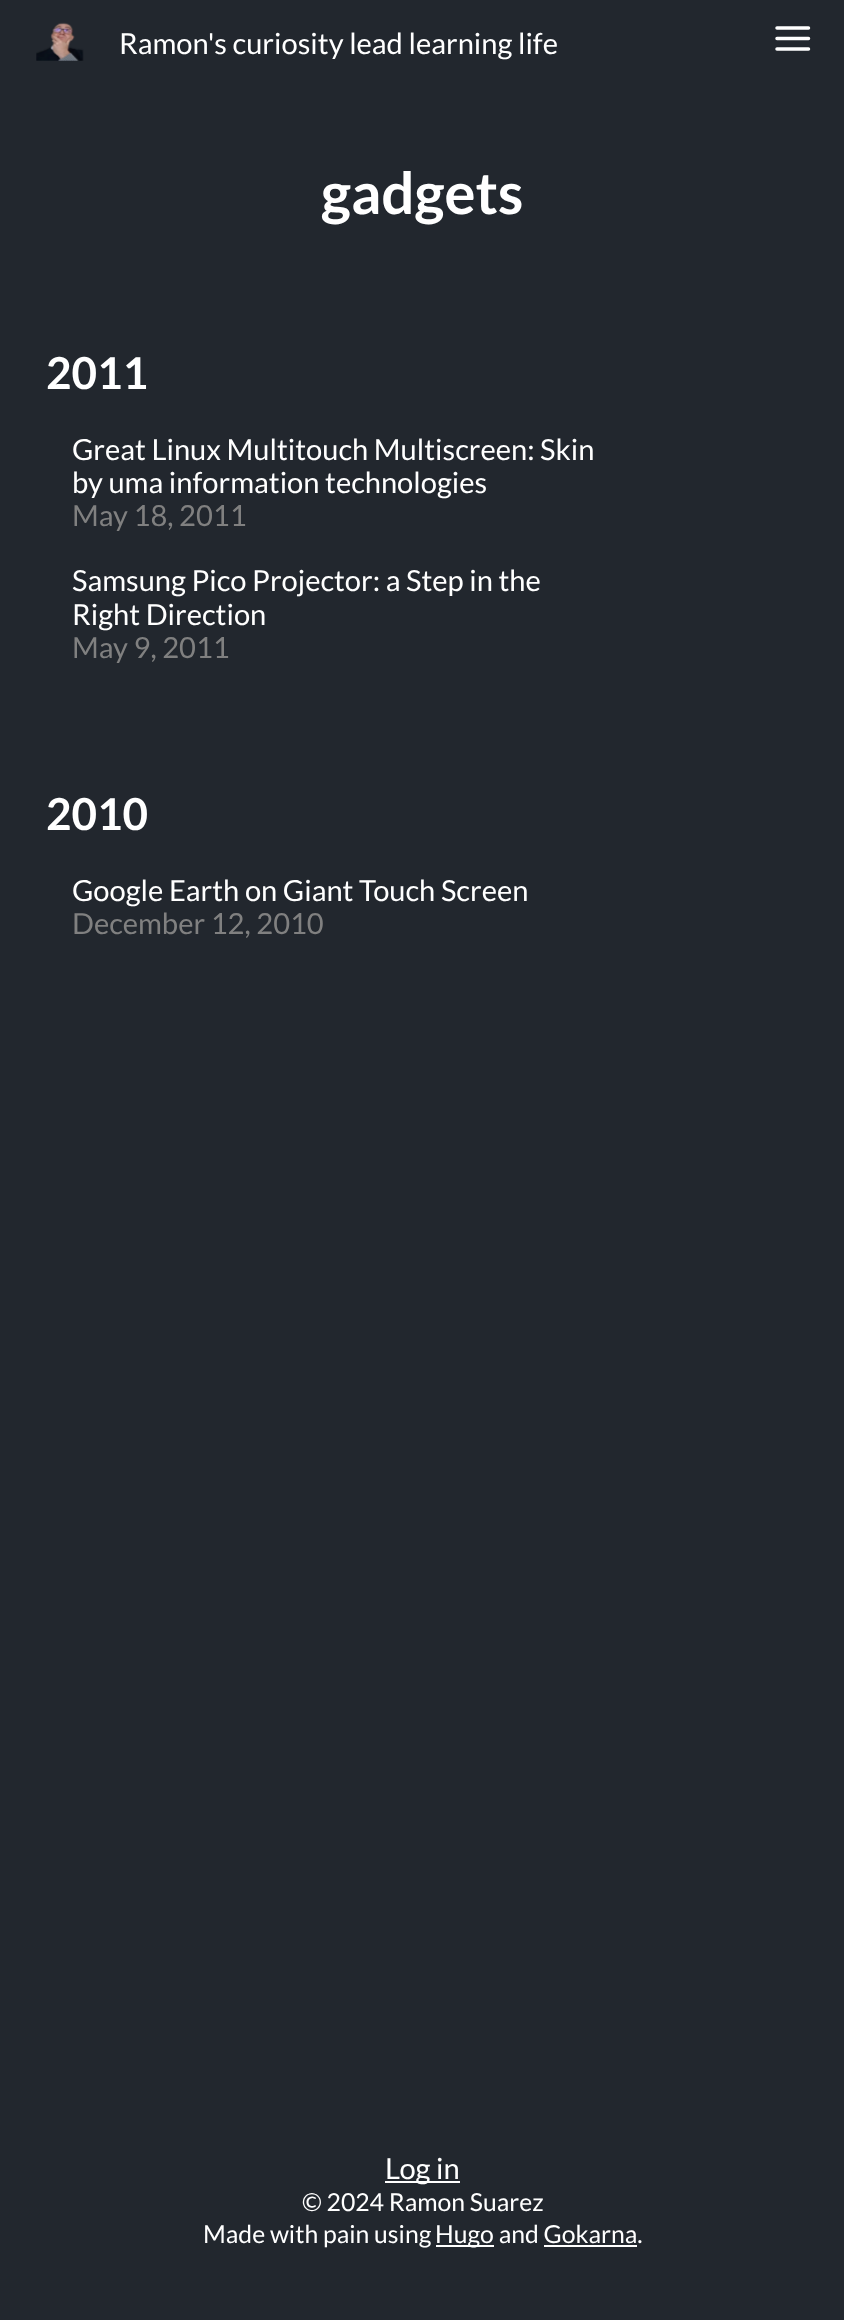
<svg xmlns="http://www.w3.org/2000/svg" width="844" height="2320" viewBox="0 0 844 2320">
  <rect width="100%" height="100%" fill="rgb(34,39,46)"/>
  <image x="36" y="22" width="48" height="39" href="pic1.png"/>
  <text x="119" y="54" font-family="Lato" font-size="29.1" fill="rgb(255,255,255)">Ramon's curiosity lead learning life</text>
  <path d="M777 38.5H808.5M777 28H808.5M777 49H808.5" fill="none" stroke="rgb(255,255,255)" stroke-width="3.5" stroke-linecap="round" stroke-linejoin="round"/>
  <text x="321" y="214" font-family="Lato" font-size="58" font-weight="bold" fill="rgb(255,255,255)">gadgets</text>
  <text x="46" y="389" font-family="Lato" font-size="44" font-weight="bold" fill="rgb(255,255,255)">2011</text>
  <g font-family="Lato" font-size="29.1" fill="rgb(255,255,255)">
    <text>
      <tspan x="72" y="460">Great Linux Multitouch Multiscreen: Skin</tspan>
      <tspan x="72" y="493">by uma information technologies</tspan>
    </text>
  </g>
  <text x="72" y="526" font-family="Lato" font-size="29.1" fill="rgb(128,128,128)">May 18, 2011</text>
  <g font-family="Lato" font-size="29.1" fill="rgb(255,255,255)">
    <text>
      <tspan x="72" y="591">Samsung Pico Projector: a Step in the</tspan>
      <tspan x="72" y="625">Right Direction</tspan>
    </text>
  </g>
  <text x="72" y="658" font-family="Lato" font-size="29.1" fill="rgb(128,128,128)">May 9, 2011</text>
  <text x="46" y="830" font-family="Lato" font-size="44" font-weight="bold" fill="rgb(255,255,255)">2010</text>
  <text x="72" y="901" font-family="Lato" font-size="29.1" fill="rgb(255,255,255)">Google Earth on Giant Touch Screen</text>
  <text x="72" y="934" font-family="Lato" font-size="29.1" fill="rgb(128,128,128)">December 12, 2010</text>
  <rect x="385" y="2181" width="75" height="2" fill="rgb(255,255,255)"/>
  <text x="385" y="2179" font-family="Lato" font-size="29.1" fill="rgb(255,255,255)">Log in</text>
  <g font-family="Lato" font-size="24.75" fill="rgb(255,255,255)">
    <text x="302" y="2211">© 2024 Ramon Suarez</text>
    <text x="203" y="2243">Made with pain using</text>
  </g>
  <rect x="436" y="2245" width="58" height="2" fill="rgb(255,255,255)"/>
  <text x="435" y="2243" font-family="Lato" font-size="24.75" fill="rgb(255,255,255)">Hugo and Gokarna.</text>
  <rect x="544" y="2245" width="93" height="2" fill="rgb(255,255,255)"/>
</svg>
